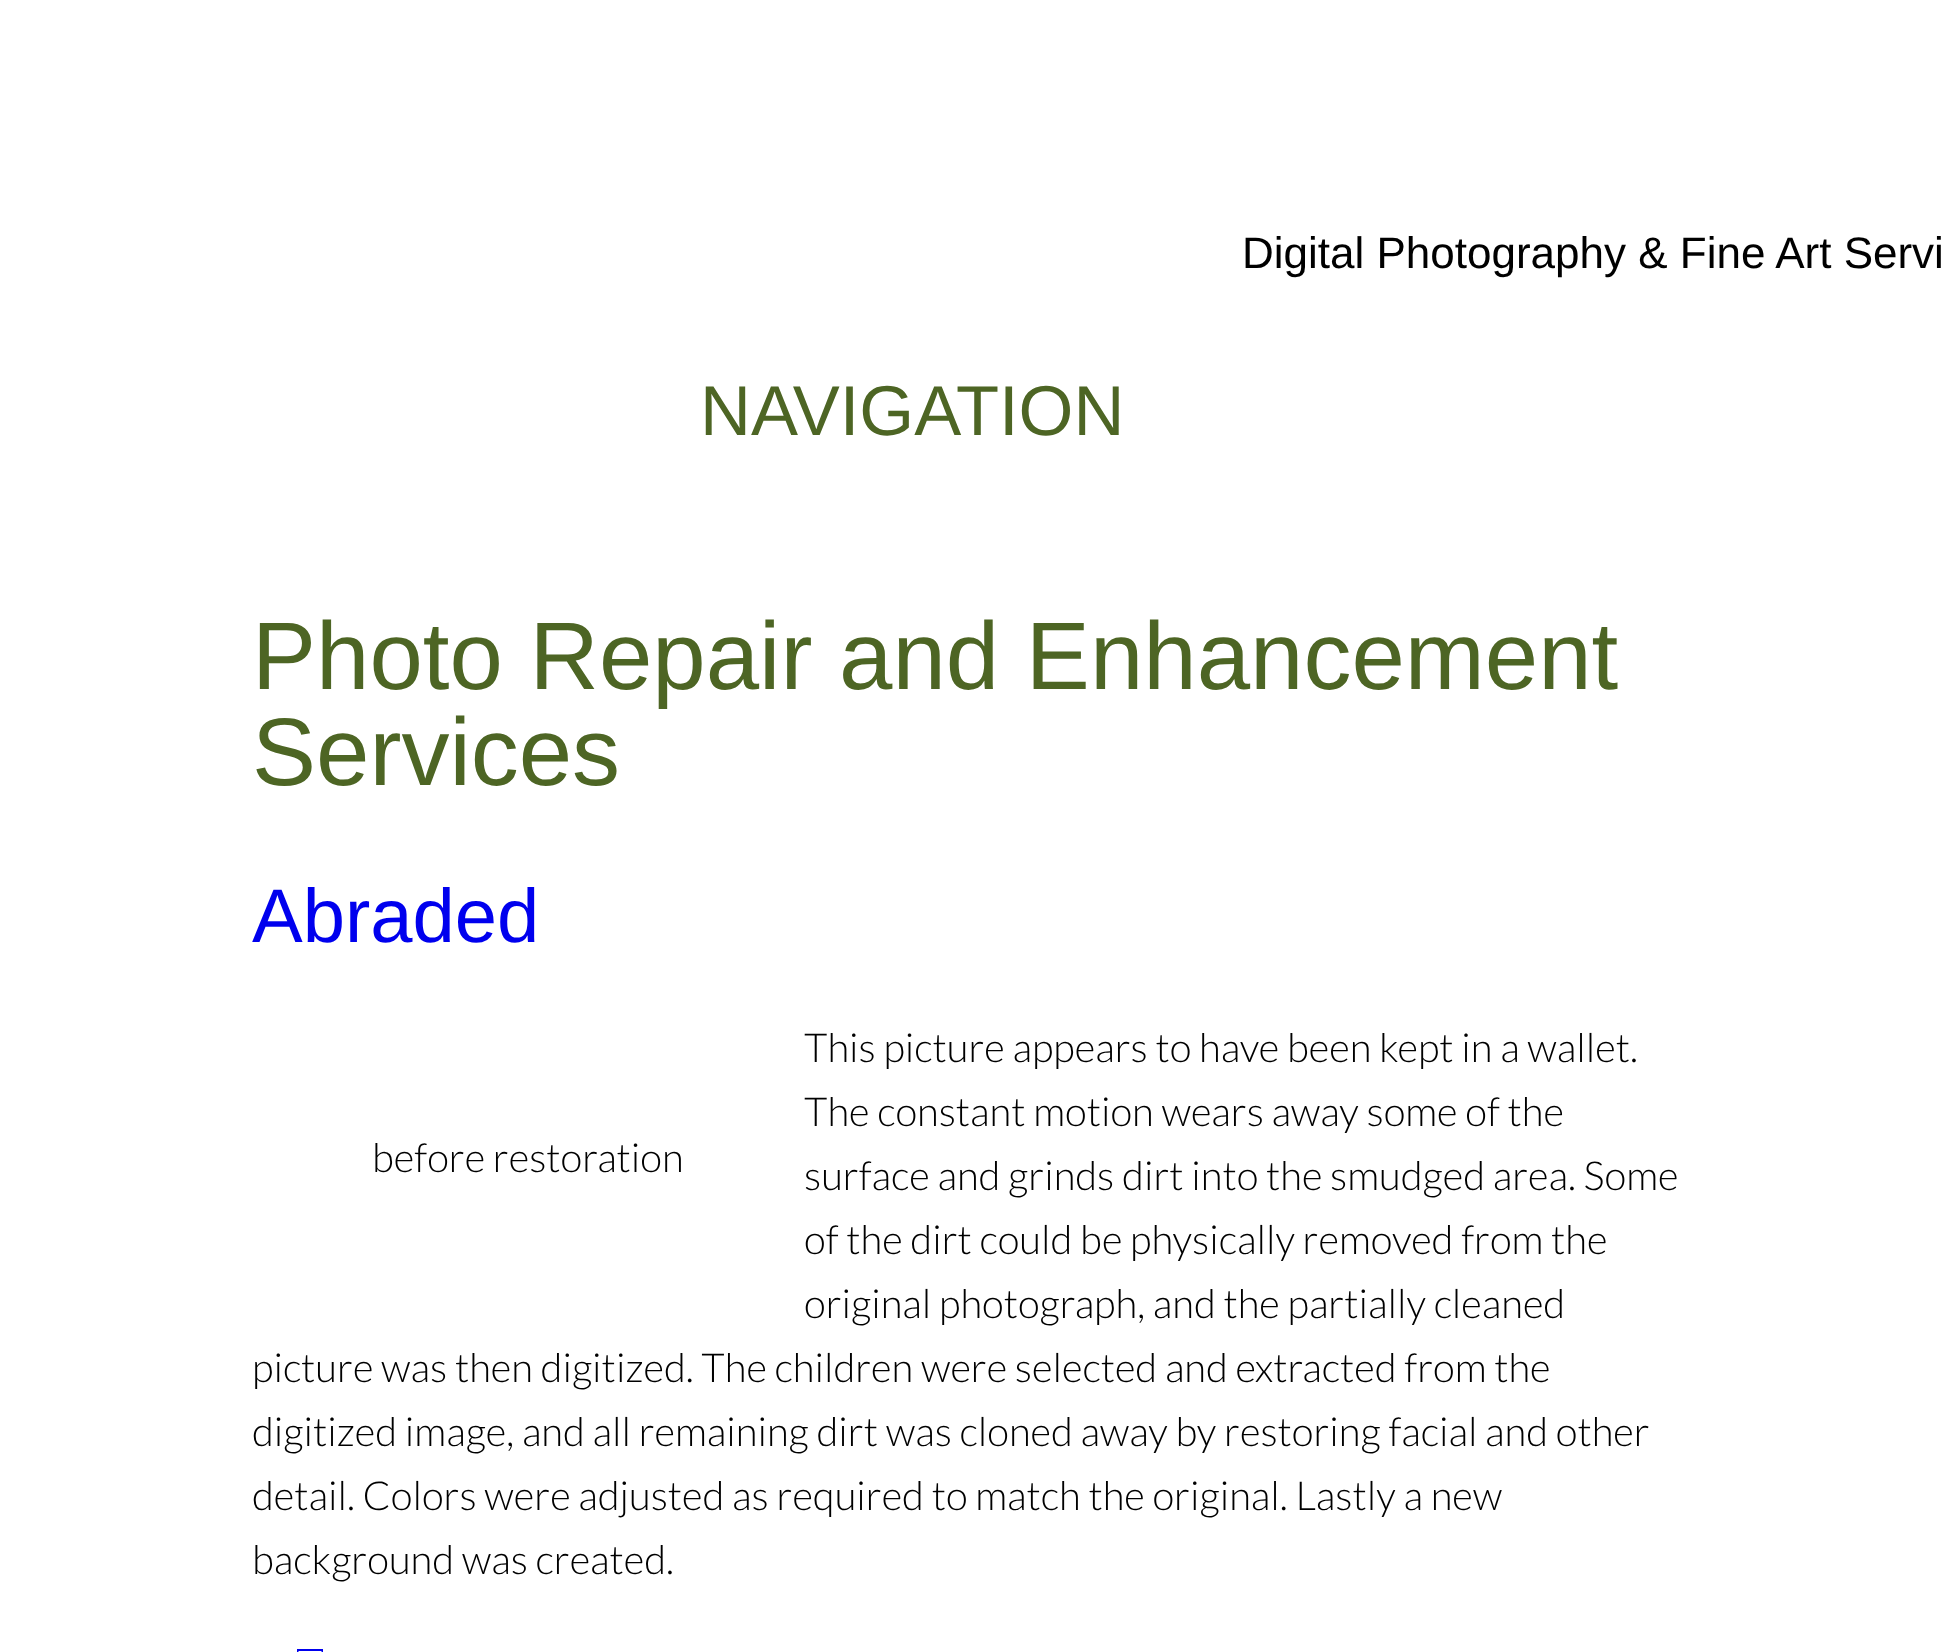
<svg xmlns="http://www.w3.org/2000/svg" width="1944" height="1652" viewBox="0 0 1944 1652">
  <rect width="100%" height="100%" fill="rgb(255,255,255)"/>
  <text x="1242" y="268" font-family="Liberation Sans" font-size="44" fill="rgb(0,0,0)">Digital Photography &amp; Fine Art Servi</text>
  <text x="700" y="435" font-family="Liberation Sans" font-size="70.5" fill="rgb(77,101,36)">NAVIGATION</text>
  <g font-family="Liberation Sans" font-size="96" fill="rgb(77,101,36)">
    <text>
      <tspan x="252" y="689">Photo Repair and Enhancement</tspan>
      <tspan x="252" y="785">Services</tspan>
    </text>
  </g>
  <text x="252" y="942" font-family="Liberation Sans" font-size="76" fill="rgb(0,0,238)">Abraded</text>
  <g font-family="Lato" font-size="40" font-weight="300" fill="rgb(0,0,0)">
    <text>
      <tspan x="804" y="1062">This picture appears to have been kept in a wallet.</tspan>
      <tspan x="804" y="1126">The constant motion wears away some of the</tspan>
      <tspan x="804" y="1190">surface and grinds dirt into the smudged area. Some</tspan>
      <tspan x="804" y="1254">of the dirt could be physically removed from the</tspan>
      <tspan x="804" y="1318">original photograph, and the partially cleaned</tspan>
    </text>
    <text>
      <tspan x="252" y="1382">picture was then digitized. The children were selected and extracted from the</tspan>
      <tspan x="252" y="1446">digitized image, and all remaining dirt was cloned away by restoring facial and other</tspan>
      <tspan x="252" y="1510">detail. Colors were adjusted as required to match the original. Lastly a new</tspan>
      <tspan x="252" y="1574">background was created.</tspan>
    </text>
    <text x="372" y="1172">before restoration</text>
  </g>
  <path d="M297 1649H323V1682H297ZM298.5 1651V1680H321.5V1651Z" fill="rgb(0,0,238)"/>
</svg>
